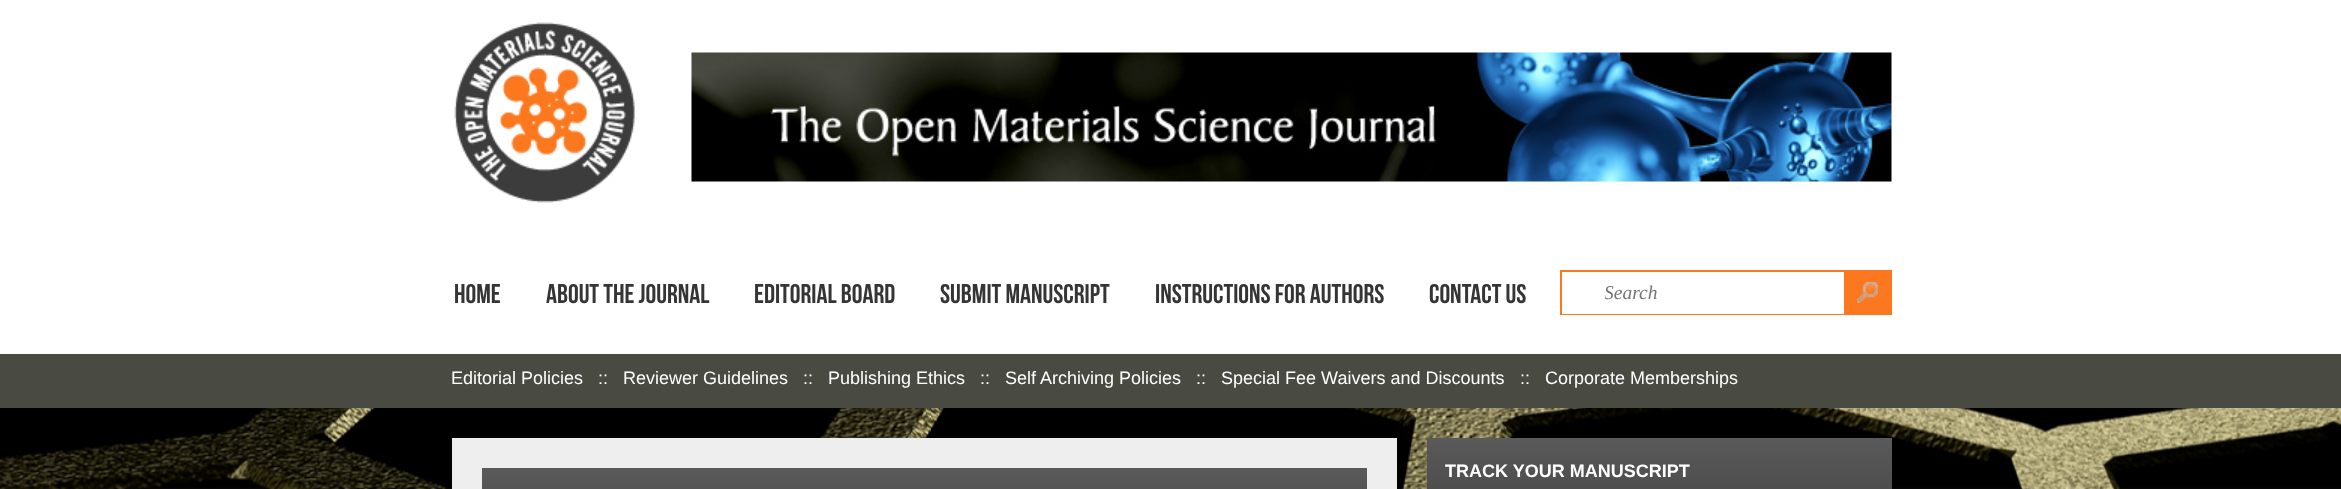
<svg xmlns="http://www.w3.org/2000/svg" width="2341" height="489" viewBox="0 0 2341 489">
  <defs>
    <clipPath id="clip1"><rect x="1605" y="281" width="236" height="24"/></clipPath>
    <linearGradient id="g1" gradientUnits="userSpaceOnUse" x1="924" y1="468" x2="924" y2="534"><stop offset="0" stop-color="rgb(90,90,90)"/><stop offset="1" stop-color="rgb(74,74,74)"/></linearGradient>
    <linearGradient id="g2" gradientUnits="userSpaceOnUse" x1="1659" y1="438" x2="1659" y2="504"><stop offset="0" stop-color="rgb(90,90,90)"/><stop offset="1" stop-color="rgb(74,74,74)"/></linearGradient>
  </defs>
  <rect width="100%" height="100%" fill="rgb(255,255,255)"/>
  <image x="0" y="408" width="2341" height="81" href="pic1.png"/>
  <image x="454" y="22" width="181" height="181" href="pic2.png"/>
  <image x="691" y="52" width="1201" height="130" href="pic3.png"/>
  <g font-family="Bebas Neue" font-size="27" fill="rgb(53,53,53)">
    <text x="454" y="303">Home</text>
    <text x="546" y="303">About the Journal</text>
    <text x="754" y="303">Editorial Board</text>
    <text x="940" y="303">Submit Manuscript</text>
    <text x="1155" y="303">Instructions for Authors</text>
    <text x="1429" y="303">Contact Us</text>
  </g>
  <rect x="1561" y="271" width="330" height="43" fill="none" stroke="rgb(252,120,31)" stroke-width="2"/>
  <rect x="1562" y="313" width="282" height="1" fill="rgb(255,255,255)"/>
  <g clip-path="url(#clip1)">
    <text x="1604" y="299" font-family="Liberation Serif" font-size="19.5" font-style="italic" fill="rgb(117,117,117)">Search</text>
  </g>
  <rect x="1844" y="272" width="46" height="41" fill="rgb(252,120,31)"/>
  <image x="1857" y="282" width="21" height="21" href="pic4.png"/>
  <rect x="0" y="354" width="2341" height="54" fill="rgb(73,74,66)"/>
  <g font-family="Liberation Sans" font-size="18" fill="rgb(255,255,255)">
    <text x="451" y="384">Editorial Policies</text>
    <text x="598" y="384">::</text>
    <text x="623" y="384">Reviewer Guidelines</text>
    <text x="803" y="384">::</text>
    <text x="828" y="384">Publishing Ethics</text>
    <text x="980" y="384">::</text>
    <text x="1005" y="384">Self Archiving Policies</text>
    <text x="1196" y="384">::</text>
    <text x="1221" y="384">Special Fee Waivers and Discounts</text>
    <text x="1520" y="384">::</text>
    <text x="1545" y="384">Corporate Memberships</text>
  </g>
  <rect x="452" y="438" width="945" height="51" fill="rgb(238,238,238)"/>
  <rect x="482" y="468" width="885" height="21" fill="url(#g1)"/>
  <rect x="1427" y="438" width="465" height="51" fill="url(#g2)"/>
  <text x="1445" y="477" font-family="Liberation Sans" font-size="18" font-weight="bold" fill="rgb(255,255,255)">TRACK YOUR MANUSCRIPT</text>
</svg>
